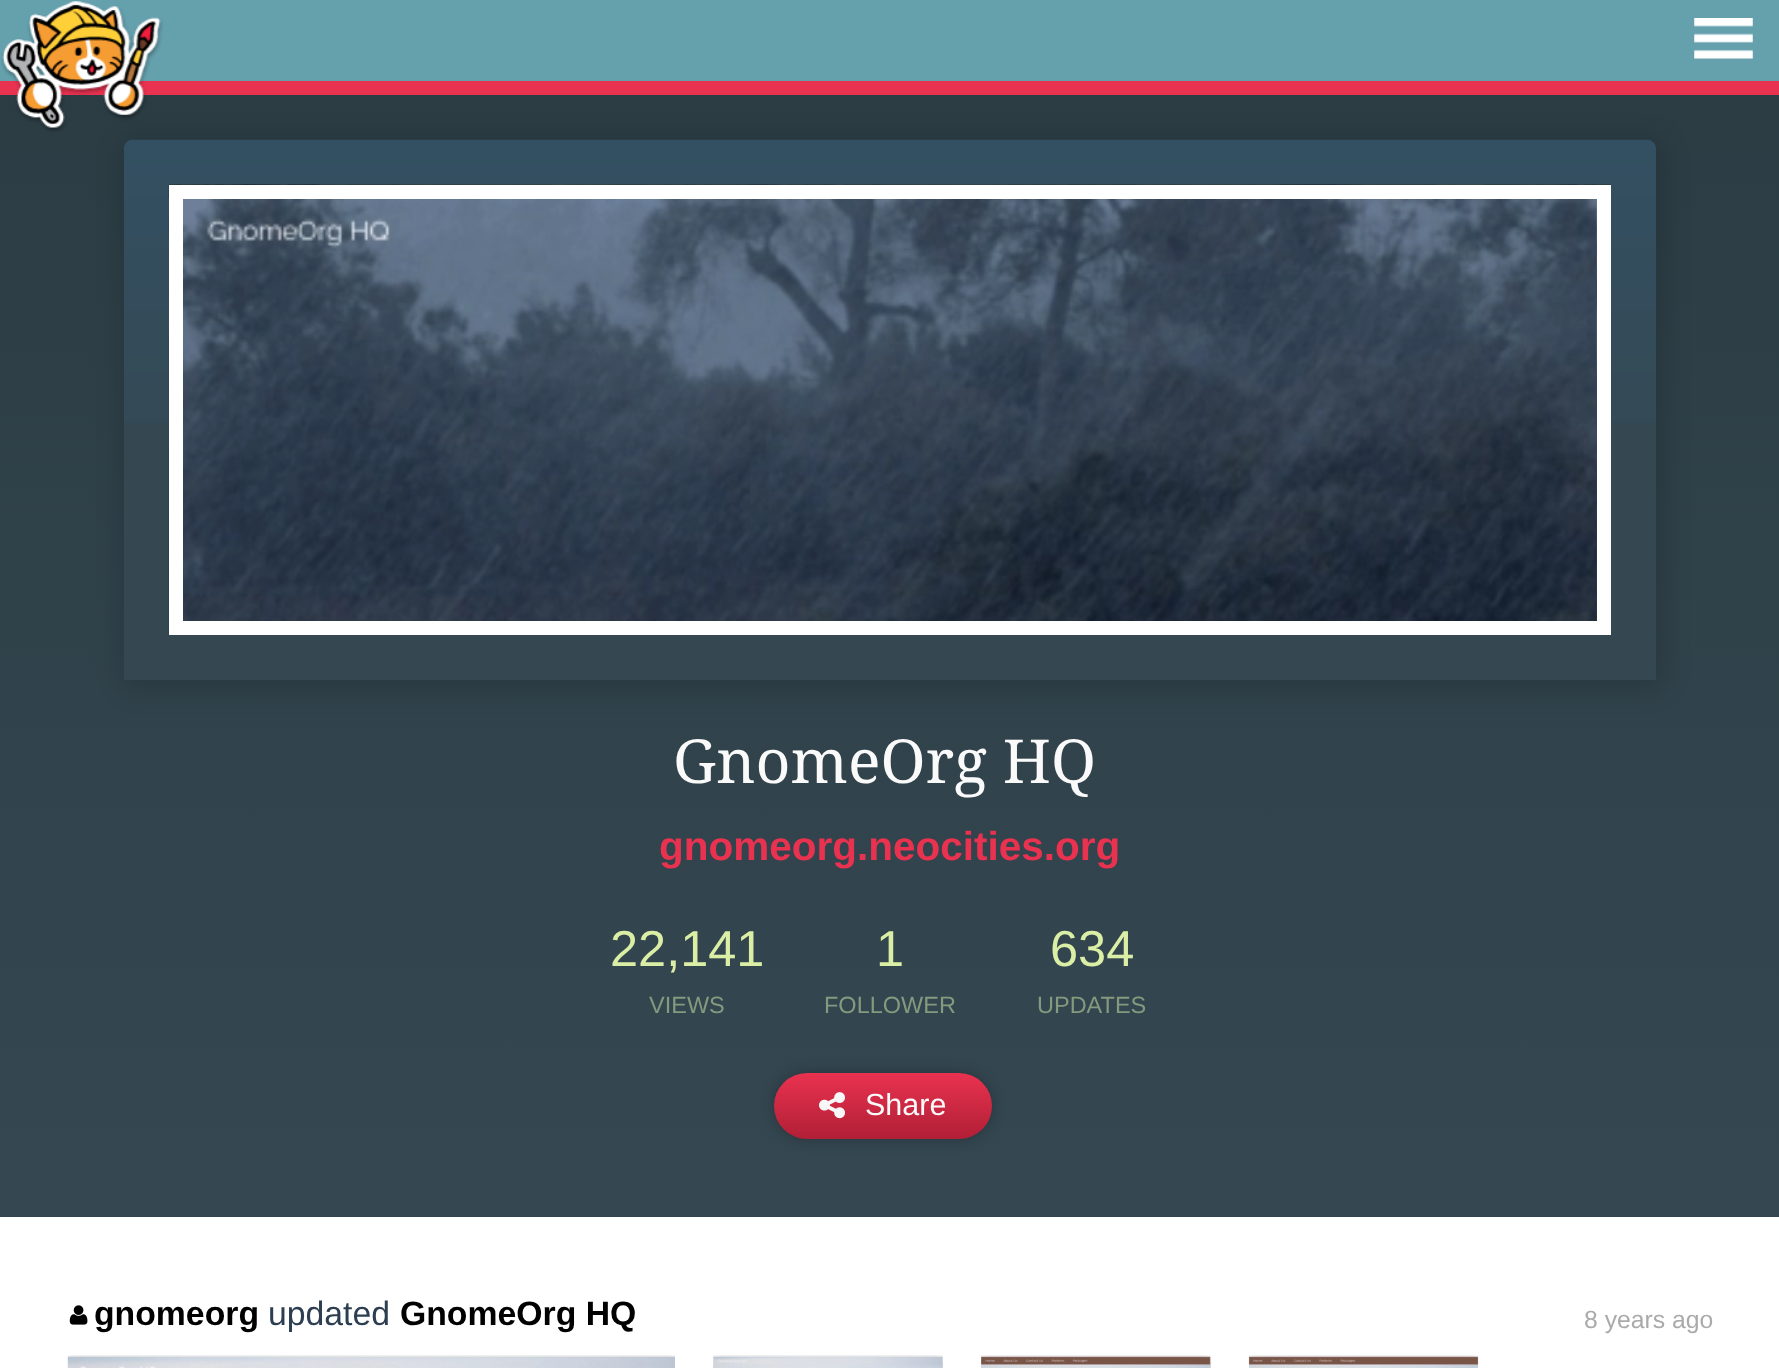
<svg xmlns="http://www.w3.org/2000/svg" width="1779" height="1368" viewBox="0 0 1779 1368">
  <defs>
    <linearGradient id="g1" gradientUnits="userSpaceOnUse" x1="890" y1="49" x2="890" y2="1217"><stop offset="0" stop-color="rgb(43,60,67)"/><stop offset="1" stop-color="rgb(53,71,81)"/></linearGradient>
    <linearGradient id="g2" gradientUnits="userSpaceOnUse" x1="883" y1="1073" x2="883" y2="1139"><stop offset="0" stop-color="rgb(233,50,80)"/><stop offset="1" stop-color="rgb(177,31,54)"/></linearGradient>
    <clipPath id="clip1"><rect x="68" y="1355" width="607" height="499"/></clipPath>
    <clipPath id="clip2"><rect x="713" y="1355" width="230" height="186"/></clipPath>
    <clipPath id="clip3"><rect x="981" y="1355" width="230" height="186"/></clipPath>
    <clipPath id="clip4"><rect x="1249" y="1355" width="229" height="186"/></clipPath>
  </defs>
  <rect width="100%" height="100%" fill="rgb(255,255,255)"/>
  <rect x="0" y="0" width="1779" height="81" fill="rgb(101,160,173)"/>
  <rect x="0" y="81" width="1779" height="14" fill="rgb(233,50,80)"/>
  <rect x="0" y="95" width="1779" height="1122" fill="url(#g1)"/>
  <rect x="122" y="140" width="1541" height="549" rx="14" fill="rgba(0,0,0,0.15)" filter="blur(13.5px)"/>
  <image x="1" y="1" width="162" height="131" href="pic1.png"/>
  <image x="1694" y="18" width="59" height="41" href="pic2.png"/>
  <path d="M133 140H1647C1652 140 1656 144 1656 149V680H124V149C124 144 128 140 133 140Z" fill="rgb(53,71,81)"/>
  <image x="124" y="139" width="1532" height="284" href="pic3.png"/>
  <image x="168" y="184" width="1443" height="451" href="pic4.png"/>
  <rect x="176" y="192" width="1428" height="436" fill="none" stroke="rgb(255,255,255)" stroke-width="14"/>
  <text x="673" y="783" font-family="Droid Serif" font-size="60.75" fill="rgb(250,250,250)">GnomeOrg HQ</text>
  <text x="659" y="860" font-family="Liberation Sans" font-size="40.5" font-weight="bold" fill="rgb(233,50,80)">gnomeorg.neocities.org</text>
  <text x="610" y="966" font-family="Liberation Sans" font-size="50.5" fill="rgb(218,238,165)">22,141</text>
  <text x="649" y="1013" font-family="Liberation Sans" font-size="23.5" fill="rgb(132,153,126)">VIEWS</text>
  <text x="876" y="966" font-family="Liberation Sans" font-size="50.5" fill="rgb(218,238,165)">1</text>
  <text x="824" y="1013" font-family="Liberation Sans" font-size="23.5" fill="rgb(132,153,126)">FOLLOWER</text>
  <text x="1050" y="966" font-family="Liberation Sans" font-size="50.5" fill="rgb(218,238,165)">634</text>
  <text x="1037" y="1013" font-family="Liberation Sans" font-size="23.5" fill="rgb(132,153,126)">UPDATES</text>
  <rect x="774" y="1073" width="218" height="66" rx="33" fill="rgba(0,0,0,0.25)" filter="blur(7px)"/>
  <rect x="774" y="1073" width="218" height="66" rx="33" fill="url(#g2)"/>
  <image x="819" y="1092" width="26" height="27" href="pic5.png"/>
  <text x="865" y="1115" font-family="Liberation Sans" font-size="30.5" fill="rgb(250,250,250)">Share</text>
  <rect x="-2" y="1217" width="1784" height="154" fill="rgba(0,0,0,0.1)" filter="blur(1px)"/>
  <rect x="0" y="1217" width="1779" height="151" fill="rgb(255,255,255)"/>
  <image x="69" y="1305" width="19" height="20" href="pic6.png"/>
  <text x="94" y="1325" font-family="Liberation Sans" font-size="33.75" font-weight="bold" fill="rgb(0,0,0)">gnomeorg</text>
  <text x="268" y="1325" font-family="Liberation Sans" font-size="33.75" fill="rgb(44,62,80)">updated</text>
  <text x="400" y="1325" font-family="Liberation Sans" font-size="33.75" font-weight="bold" fill="rgb(0,0,0)">GnomeOrg HQ</text>
  <text x="1584" y="1328" font-family="Liberation Sans" font-size="24.75" fill="rgb(170,170,170)">8 years ago</text>
  <g clip-path="url(#clip1)">
    <rect x="68" y="1359" width="607" height="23" fill="rgba(0,0,0,0.3)" filter="blur(4.5px)"/>
  </g>
  <image x="67" y="1356" width="608" height="12" href="pic7.png"/>
  <g clip-path="url(#clip2)">
    <rect x="713" y="1359" width="230" height="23" fill="rgba(0,0,0,0.3)" filter="blur(4.5px)"/>
  </g>
  <image x="713" y="1356" width="230" height="12" href="pic8.png"/>
  <g clip-path="url(#clip3)">
    <rect x="981" y="1359" width="230" height="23" fill="rgba(0,0,0,0.3)" filter="blur(4.5px)"/>
  </g>
  <image x="981" y="1356" width="230" height="12" href="pic9.png"/>
  <g clip-path="url(#clip4)">
    <rect x="1249" y="1359" width="229" height="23" fill="rgba(0,0,0,0.3)" filter="blur(4.5px)"/>
  </g>
  <image x="1248" y="1356" width="231" height="12" href="pic10.png"/>
</svg>
